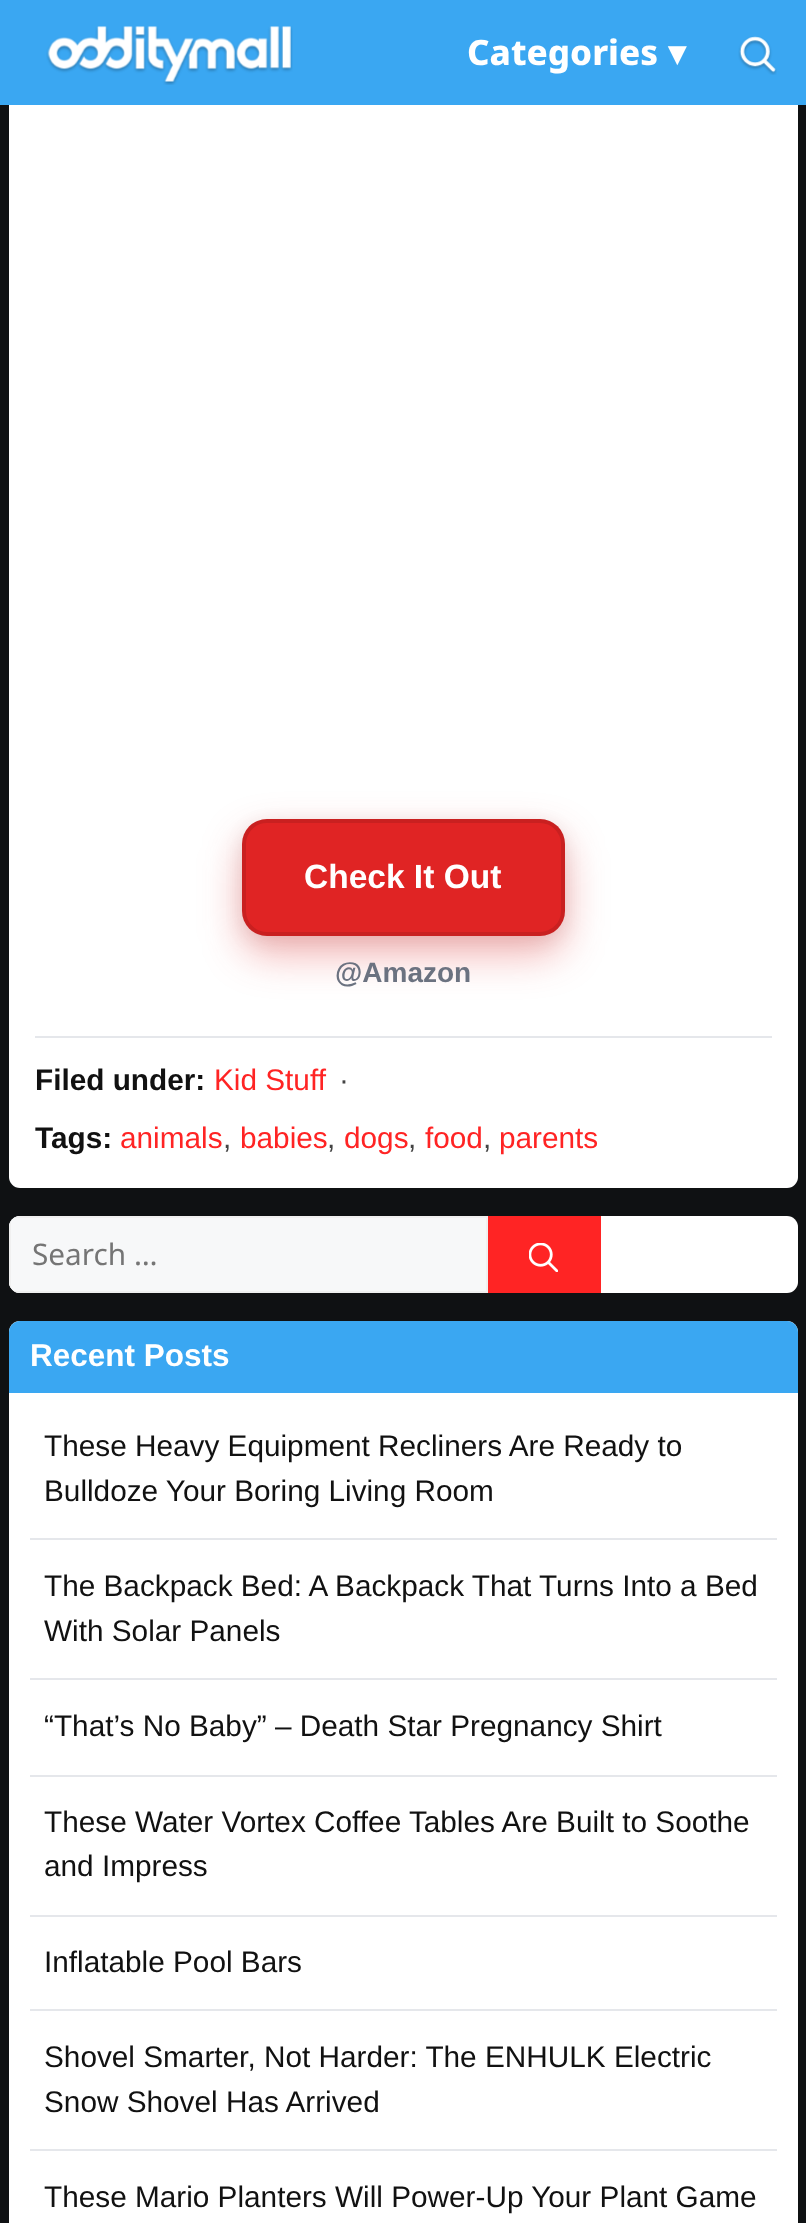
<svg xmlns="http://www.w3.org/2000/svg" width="806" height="2223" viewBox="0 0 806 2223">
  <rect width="100%" height="100%" fill="rgb(15,17,19)"/>
  <rect x="9" y="-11" width="789" height="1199" rx="11" fill="rgb(255,255,255)"/>
  <rect x="0" y="0" width="806" height="105" fill="rgb(58,167,242)"/>
  <image x="46" y="26" width="247" height="59" href="pic1.png"/>
  <text x="467" y="65" font-family="Noto Sans" font-size="35" font-weight="800" fill="rgb(255,255,255)">Categories</text>
  <text x="668" y="65" font-family="DejaVu Sans" font-size="35" font-weight="bold" fill="rgb(255,255,255)">▾</text>
  <image x="738" y="36" width="39" height="39" href="pic2.png"/>
  <rect x="242" y="824" width="323" height="118" rx="25" fill="rgba(0,0,0,0.08)" filter="blur(9px)"/>
  <rect x="242" y="837" width="323" height="117" rx="25" fill="rgba(224,36,36,0.35)" filter="blur(21px)"/>
  <rect x="242" y="819" width="323" height="117" rx="25" fill="rgb(224,36,36)"/>
  <rect x="244" y="821" width="319" height="113" rx="23" fill="none" stroke="rgba(0,0,0,0.1)" stroke-width="4"/>
  <text x="304" y="888" font-family="Liberation Sans" font-size="33.5" font-weight="bold" fill="rgb(255,255,255)">Check It Out</text>
  <text x="335" y="982" font-family="Liberation Sans" font-size="28" font-weight="bold" fill="rgb(107,114,128)">@Amazon</text>
  <rect x="35" y="1036" width="737" height="2" fill="rgb(229,231,235)"/>
  <text x="35" y="1090" font-family="Liberation Sans" font-size="29.75" font-weight="bold" fill="rgb(17,17,17)">Filed under:</text>
  <text x="214" y="1090" font-family="Liberation Sans" font-size="29.75" fill="rgb(255,36,36)">Kid Stuff</text>
  <text x="339" y="1090" font-family="Liberation Sans" font-size="29.75" fill="rgb(68,68,68)">·</text>
  <text x="35" y="1148" font-family="Liberation Sans" font-size="29.75" font-weight="bold" fill="rgb(17,17,17)">Tags:</text>
  <text x="120" y="1148" font-family="Liberation Sans" font-size="29.75" fill="rgb(255,36,36)">animals</text>
  <text x="223" y="1148" font-family="Liberation Sans" font-size="29.75" fill="rgb(68,68,68)">,</text>
  <text x="240" y="1148" font-family="Liberation Sans" font-size="29.75" fill="rgb(255,36,36)">babies</text>
  <text x="327" y="1148" font-family="Liberation Sans" font-size="29.75" fill="rgb(68,68,68)">,</text>
  <text x="344" y="1148" font-family="Liberation Sans" font-size="29.75" fill="rgb(255,36,36)">dogs</text>
  <text x="408" y="1148" font-family="Liberation Sans" font-size="29.75" fill="rgb(68,68,68)">,</text>
  <text x="425" y="1148" font-family="Liberation Sans" font-size="29.75" fill="rgb(255,36,36)">food</text>
  <text x="483" y="1148" font-family="Liberation Sans" font-size="29.75" fill="rgb(68,68,68)">,</text>
  <text x="499" y="1148" font-family="Liberation Sans" font-size="29.75" fill="rgb(255,36,36)">parents</text>
  <rect x="9" y="1216" width="789" height="77" rx="11" fill="rgb(255,255,255)"/>
  <path d="M20 1216H488V1293H20C14 1293 9 1288 9 1282V1227C9 1221 14 1216 20 1216Z" fill="rgb(247,248,249)"/>
  <path d="M9 1227V1282C9 1284 10 1287 11 1288V1221C10 1222 9 1225 9 1227ZM20 1216C18 1216 15 1217 14 1218H486V1291H14C15 1292 18 1293 20 1293H488V1216Z" fill="rgb(240,240,240)" fill-rule="evenodd"/>
  <text x="32" y="1265" font-family="Noto Sans" font-size="29.75" fill="rgb(117,117,117)">Search …</text>
  <rect x="488" y="1218" width="111" height="74" fill="rgb(255,36,36)"/>
  <rect x="488" y="1216" width="112" height="2" fill="rgb(255,36,36)"/>
  <rect x="599" y="1216" width="2" height="77" fill="rgb(255,36,36)"/>
  <rect x="488" y="1292" width="112" height="1" fill="rgb(255,36,36)"/>
  <image x="529" y="1243" width="29" height="29" href="pic3.png"/>
  <rect x="9" y="1321" width="789" height="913" rx="11" fill="rgb(255,255,255)"/>
  <path d="M20 1321H787C793 1321 798 1326 798 1332V1393H9V1332C9 1326 14 1321 20 1321Z" fill="rgb(58,167,242)"/>
  <text x="30" y="1366" font-family="Liberation Sans" font-size="31.5" font-weight="bold" fill="rgb(255,255,255)">Recent Posts</text>
  <g font-family="Liberation Sans" font-size="29.75" fill="rgb(17,17,17)">
    <text>
      <tspan x="44" y="1456">These Heavy Equipment Recliners Are Ready to</tspan>
      <tspan x="44" y="1501">Bulldoze Your Boring Living Room</tspan>
    </text>
  </g>
  <rect x="30" y="1538" width="747" height="2" fill="rgb(229,231,235)"/>
  <g font-family="Liberation Sans" font-size="29.75" fill="rgb(17,17,17)">
    <text>
      <tspan x="44" y="1596">The Backpack Bed: A Backpack That Turns Into a Bed</tspan>
      <tspan x="44" y="1641">With Solar Panels</tspan>
    </text>
  </g>
  <rect x="30" y="1678" width="747" height="2" fill="rgb(229,231,235)"/>
  <text x="44" y="1736" font-family="Liberation Sans" font-size="29.75" fill="rgb(17,17,17)">“That’s No Baby” – Death Star Pregnancy Shirt</text>
  <rect x="30" y="1775" width="747" height="2" fill="rgb(229,231,235)"/>
  <g font-family="Liberation Sans" font-size="29.75" fill="rgb(17,17,17)">
    <text>
      <tspan x="44" y="1832">These Water Vortex Coffee Tables Are Built to Soothe</tspan>
      <tspan x="44" y="1876">and Impress</tspan>
    </text>
  </g>
  <rect x="30" y="1915" width="747" height="2" fill="rgb(229,231,235)"/>
  <text x="44" y="1972" font-family="Liberation Sans" font-size="29.75" fill="rgb(17,17,17)">Inflatable Pool Bars</text>
  <rect x="30" y="2009" width="747" height="2" fill="rgb(229,231,235)"/>
  <g font-family="Liberation Sans" font-size="29.75" fill="rgb(17,17,17)">
    <text>
      <tspan x="44" y="2067">Shovel Smarter, Not Harder: The ENHULK Electric</tspan>
      <tspan x="44" y="2112">Snow Shovel Has Arrived</tspan>
    </text>
  </g>
  <rect x="30" y="2149" width="747" height="2" fill="rgb(229,231,235)"/>
  <text x="44" y="2207" font-family="Liberation Sans" font-size="29.75" fill="rgb(17,17,17)">These Mario Planters Will Power-Up Your Plant Game</text>
</svg>
